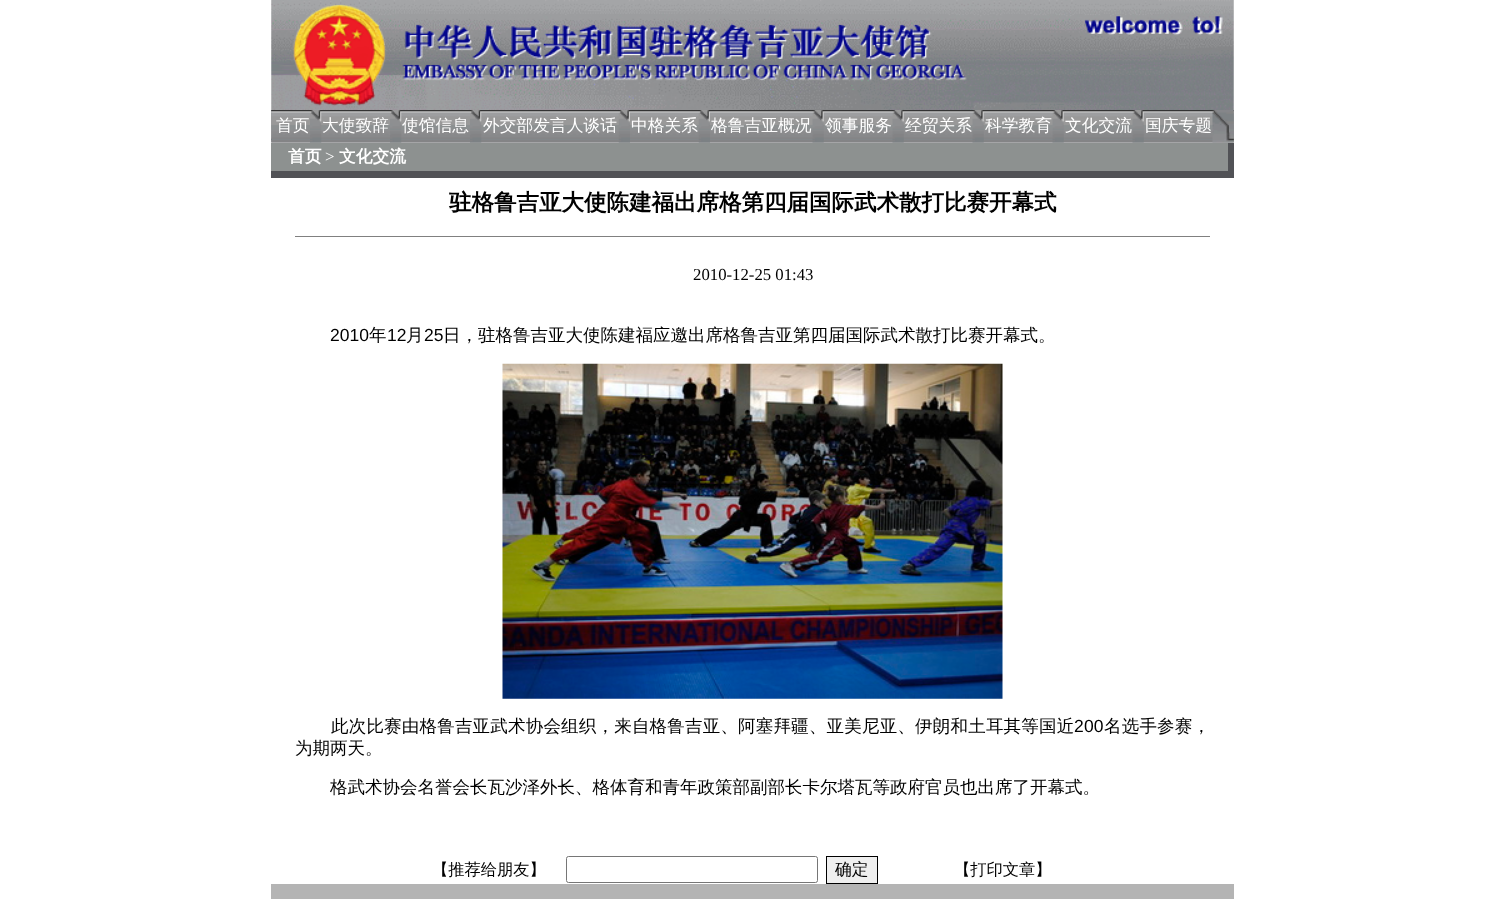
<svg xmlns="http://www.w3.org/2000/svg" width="1505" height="899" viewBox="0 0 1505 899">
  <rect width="100%" height="100%" fill="rgb(255,255,255)"/>
  <image x="271" y="0" width="963" height="110" href="pic1.png"/>
  <image x="271" y="110" width="963" height="33" href="pic2.png"/>
  <image x="271" y="110" width="963" height="33" href="pic3.png"/>
  <text x="276" y="131" font-family="WenQuanYi Zen Hei" font-size="16.75" font-weight="500" fill="rgb(255,255,255)">首页</text>
  <image x="310" y="110" width="12" height="33" href="pic4.png"/>
  <text x="322" y="131" font-family="WenQuanYi Zen Hei" font-size="16.75" font-weight="500" fill="rgb(255,255,255)">大使致辞</text>
  <image x="390" y="110" width="12" height="33" href="pic5.png"/>
  <text x="402" y="131" font-family="WenQuanYi Zen Hei" font-size="16.75" font-weight="500" fill="rgb(255,255,255)">使馆信息</text>
  <image x="470" y="110" width="12" height="33" href="pic6.png"/>
  <text x="483" y="131" font-family="WenQuanYi Zen Hei" font-size="16.75" font-weight="500" fill="rgb(255,255,255)">外交部发言人谈话</text>
  <image x="618" y="110" width="12" height="33" href="pic7.png"/>
  <text x="631" y="131" font-family="WenQuanYi Zen Hei" font-size="16.75" font-weight="500" fill="rgb(255,255,255)">中格关系</text>
  <image x="698" y="110" width="12" height="33" href="pic8.png"/>
  <text x="711" y="131" font-family="WenQuanYi Zen Hei" font-size="16.75" font-weight="500" fill="rgb(255,255,255)">格鲁吉亚概况</text>
  <image x="812" y="110" width="12" height="33" href="pic9.png"/>
  <text x="825" y="131" font-family="WenQuanYi Zen Hei" font-size="16.75" font-weight="500" fill="rgb(255,255,255)">领事服务</text>
  <image x="892" y="110" width="12" height="33" href="pic10.png"/>
  <text x="905" y="131" font-family="WenQuanYi Zen Hei" font-size="16.75" font-weight="500" fill="rgb(255,255,255)">经贸关系</text>
  <image x="972" y="110" width="12" height="33" href="pic11.png"/>
  <text x="985" y="131" font-family="WenQuanYi Zen Hei" font-size="16.75" font-weight="500" fill="rgb(255,255,255)">科学教育</text>
  <image x="1052" y="110" width="12" height="33" href="pic12.png"/>
  <text x="1065" y="131" font-family="WenQuanYi Zen Hei" font-size="16.75" font-weight="500" fill="rgb(255,255,255)">文化交流</text>
  <image x="1132" y="110" width="12" height="33" href="pic13.png"/>
  <text x="1145" y="131" font-family="WenQuanYi Zen Hei" font-size="16.75" font-weight="500" fill="rgb(255,255,255)">国庆专题</text>
  <image x="1212" y="110" width="22" height="33" href="pic14.png"/>
  <rect x="271" y="143" width="957" height="28" fill="rgb(141,145,144)"/>
  <rect x="1228" y="143" width="6" height="35" fill="rgb(81,82,86)"/>
  <rect x="271" y="171" width="963" height="7" fill="rgb(81,82,86)"/>
  <text x="288" y="162" font-family="WenQuanYi Zen Hei" font-size="16.75" font-weight="bold" fill="rgb(255,255,255)">首页</text>
  <text x="325" y="162" font-family="Liberation Serif" font-size="16.75" fill="rgb(255,255,255)">&gt;</text>
  <text x="339" y="162" font-family="WenQuanYi Zen Hei" font-size="16.75" font-weight="bold" fill="rgb(255,255,255)">文化交流</text>
  <text x="449" y="210" font-family="WenQuanYi Zen Hei" font-size="22.5" font-weight="bold" fill="rgb(0,0,0)">驻格鲁吉亚大使陈建福出席格第四届国际武术散打比赛开幕式</text>
  <rect x="295" y="236" width="915" height="1" fill="rgb(128,128,128)"/>
  <text x="693" y="280" font-family="Liberation Serif" font-size="16.75" fill="rgb(0,0,0)">2010-12-25 01:43</text>
  <text x="330" y="341" font-family="Liberation Sans" font-size="17.5" fill="rgb(0,0,0)">2010</text>
  <text x="369" y="341" font-family="WenQuanYi Zen Hei" font-size="17.5" font-weight="500" fill="rgb(0,0,0)">年</text>
  <text x="387" y="341" font-family="Liberation Sans" font-size="17.5" fill="rgb(0,0,0)">12</text>
  <text x="406" y="341" font-family="WenQuanYi Zen Hei" font-size="17.5" font-weight="500" fill="rgb(0,0,0)">月</text>
  <text x="424" y="341" font-family="Liberation Sans" font-size="17.5" fill="rgb(0,0,0)">25</text>
  <text x="443" y="341" font-family="WenQuanYi Zen Hei" font-size="17.5" font-weight="500" fill="rgb(0,0,0)">日，驻格鲁吉亚大使陈建福应邀出席格鲁吉亚第四届国际武术散打比赛开幕式。</text>
  <image x="502" y="363" width="501" height="336" href="pic15.png"/>
  <text x="331" y="732" font-family="WenQuanYi Zen Hei" font-size="17.5" font-weight="500" letter-spacing="0.2" fill="rgb(0,0,0)">此次比赛由格鲁吉亚武术协会组织，来自格鲁吉亚、阿塞拜疆、亚美尼亚、伊朗和土耳其等国近</text>
  <text x="1074" y="732" font-family="Liberation Sans" font-size="17.5" letter-spacing="0.2" fill="rgb(0,0,0)">200</text>
  <text x="1104" y="732" font-family="WenQuanYi Zen Hei" font-size="17.5" font-weight="500" letter-spacing="0.2" fill="rgb(0,0,0)">名选手参赛，</text>
  <g font-family="WenQuanYi Zen Hei" font-size="17.5" font-weight="500" fill="rgb(0,0,0)">
    <text x="295" y="754">为期两天。</text>
    <text x="330" y="793">格武术协会名誉会长瓦沙泽外长、格体育和青年政策部副部长卡尔塔瓦等政府官员也出席了开幕式。</text>
  </g>
  <text x="432" y="875" font-family="WenQuanYi Zen Hei" font-size="16.25" font-weight="500" fill="rgb(0,0,0)">【推荐给朋友】</text>
  <rect x="566.5" y="856.5" width="251" height="26" rx="2" fill="none" stroke="rgb(118,118,118)"/>
  <rect x="826.5" y="856.5" width="51" height="27" fill="rgb(239,239,239)" stroke="rgb(0,0,0)"/>
  <text x="835" y="875" font-family="WenQuanYi Zen Hei" font-size="16.75" font-weight="500" fill="rgb(0,0,0)">确定</text>
  <text x="954" y="875" font-family="WenQuanYi Zen Hei" font-size="16.25" font-weight="500" fill="rgb(0,0,0)">【打印文章】</text>
  <rect x="271" y="884" width="963" height="15" fill="rgb(180,180,180)"/>
</svg>
